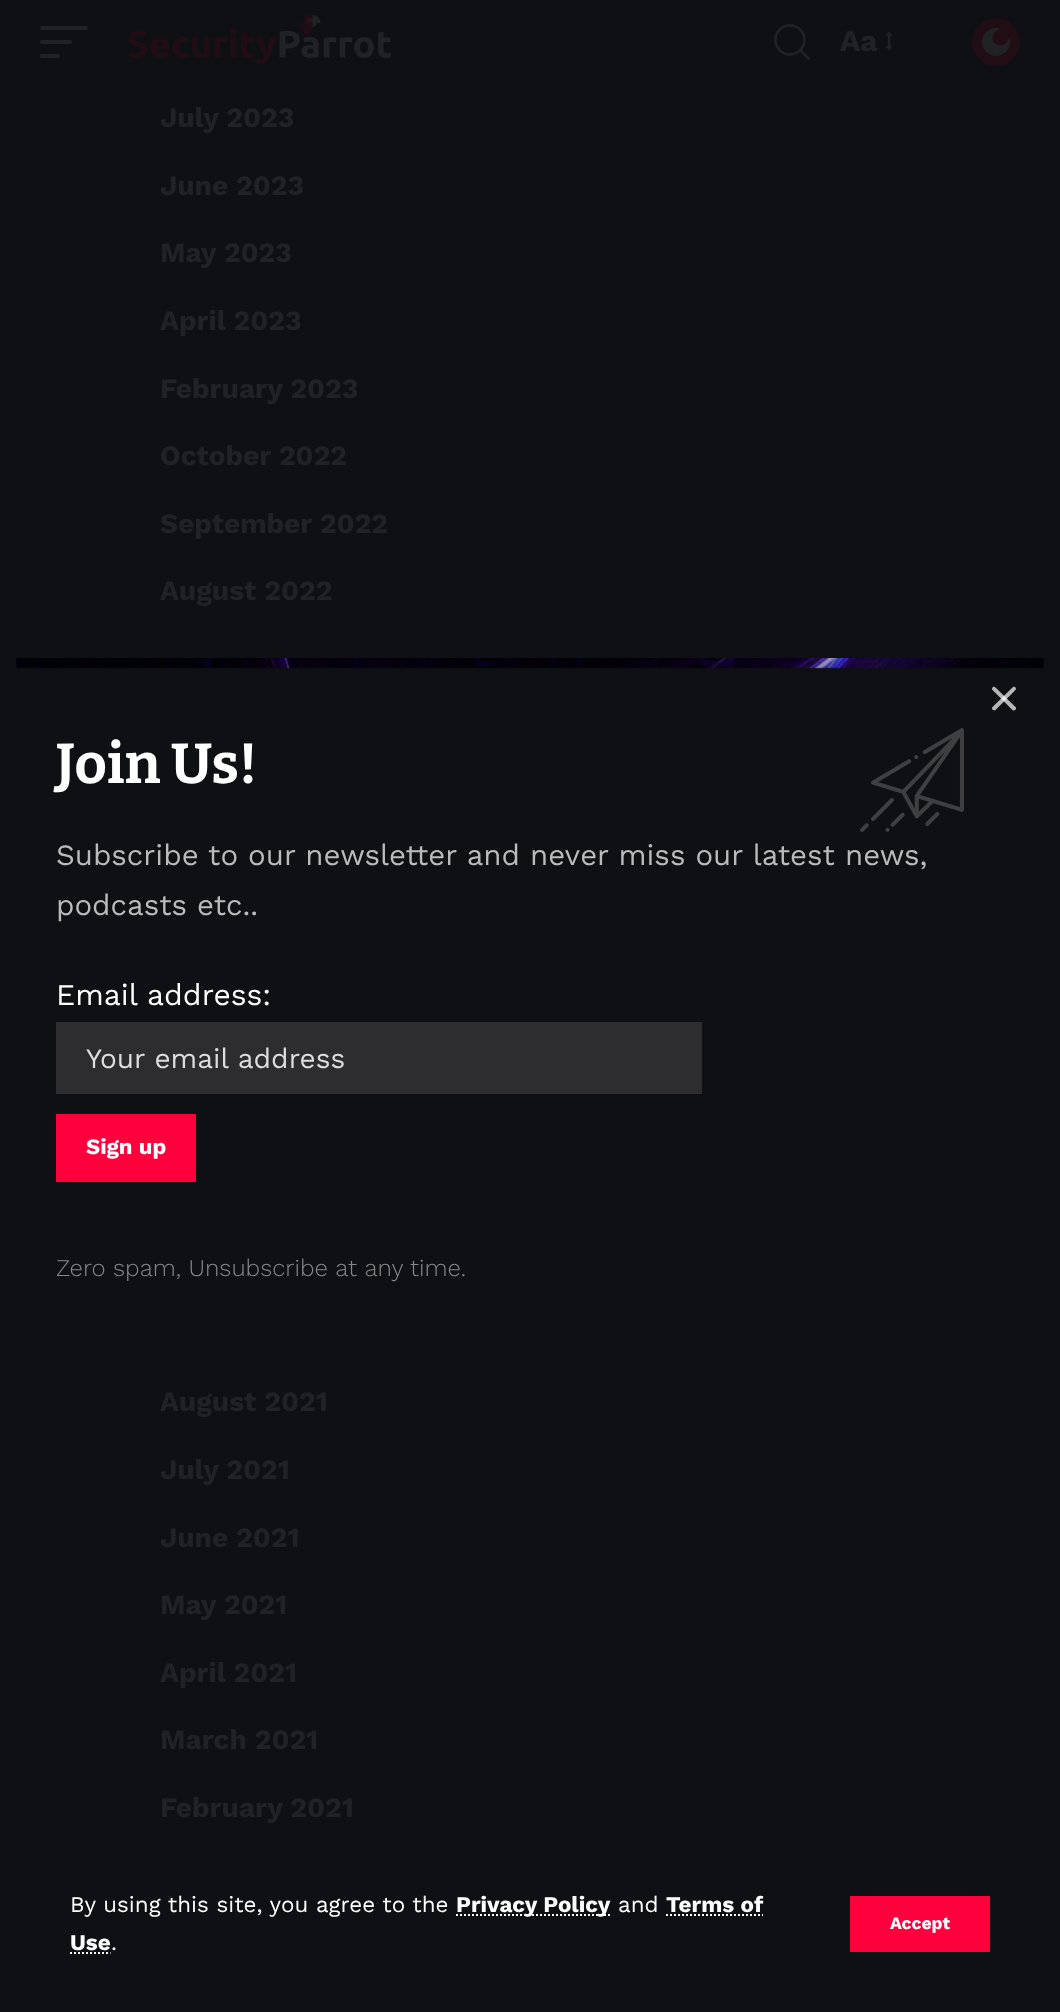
<svg xmlns="http://www.w3.org/2000/svg" width="1060" height="2012" viewBox="0 0 1060 2012">
  <rect width="100%" height="100%" fill="rgb(15,16,19)"/>
  <rect x="40" y="26" width="48" height="4" rx="2" fill="rgb(33,34,37)"/>
  <rect x="40" y="40" width="32" height="4" rx="2" fill="rgb(33,34,37)"/>
  <rect x="40" y="54" width="20" height="4" rx="2" fill="rgb(33,34,37)"/>
  <image x="128" y="14" width="264" height="51" href="pic1.png"/>
  <image x="774" y="24" width="36" height="36" href="pic2.png"/>
  <text x="840" y="51" font-family="Work Sans" font-size="30" font-weight="bold" fill="rgb(33,34,37)">Aa</text>
  <image x="885" y="32" width="8" height="18" href="pic3.png"/>
  <circle cx="996" cy="42" r="24" fill="rgb(33,14,21)"/>
  <image x="982" y="28" width="28" height="28" href="pic4.png"/>
  <text x="70" y="1912" font-family="Work Sans" font-size="22.4" fill="rgb(255,255,255)">By using this site, you agree to the</text>
  <path d="M456 1915H610" fill="none" stroke="rgb(255,255,255)" stroke-width="2" stroke-dasharray="2 2"/>
  <text x="456" y="1912" font-family="Work Sans" font-size="22.4" font-weight="bold" fill="rgb(255,255,255)">Privacy Policy</text>
  <text x="618" y="1912" font-family="Work Sans" font-size="22.4" fill="rgb(255,255,255)">and</text>
  <text x="666" y="1912" font-family="Work Sans" font-size="22.4" font-weight="bold" fill="rgb(255,255,255)">Terms of</text>
  <path d="M666 1915H763" fill="none" stroke="rgb(255,255,255)" stroke-width="2" stroke-dasharray="2 2"/>
  <text x="70" y="1950" font-family="Work Sans" font-size="22.4" font-weight="bold" fill="rgb(255,255,255)">Use</text>
  <path d="M70 1953H110.5" fill="none" stroke="rgb(255,255,255)" stroke-width="2" stroke-dasharray="2 2"/>
  <text x="111" y="1950" font-family="Work Sans" font-size="22.4" fill="rgb(255,255,255)">.</text>
  <rect x="850" y="1896" width="140" height="56" fill="rgb(255,0,60)"/>
  <text x="890" y="1929" font-family="Work Sans" font-size="17.5" font-weight="bold" fill="rgb(255,255,255)">Accept</text>
  <g font-family="Work Sans" font-size="28" font-weight="bold" fill="rgb(33,34,37)">
    <text x="160" y="127">July 2023</text>
    <text x="160" y="195">June 2023</text>
    <text x="160" y="262">May 2023</text>
    <text x="160" y="330">April 2023</text>
    <text x="160" y="398">February 2023</text>
    <text x="160" y="465">October 2022</text>
    <text x="160" y="533">September 2022</text>
    <text x="160" y="600">August 2022</text>
    <text x="160" y="1411">August 2021</text>
    <text x="160" y="1479">July 2021</text>
    <text x="160" y="1547">June 2021</text>
    <text x="160" y="1614">May 2021</text>
    <text x="160" y="1682">April 2021</text>
    <text x="160" y="1749">March 2021</text>
    <text x="160" y="1817">February 2021</text>
  </g>
  <path d="M995.5 687.5L1016 707.5C1016.5 709 1015 711 1013.5 710.5C1012 710 1009 706.5 1009 706.5L992.5 690C991 688.5 993.5 685.5 995.5 687.5Z" fill="rgb(183,183,184)"/>
  <path d="M992.5 707L1013 687C1014.5 686.5 1016 687.5 1016 689C1015.5 690.5 1012 693.5 1012 693.5L995.5 710C993.5 711.5 991 709 992.5 707Z" fill="rgba(255,255,255,0.7)"/>
  <rect x="16" y="658" width="1028" height="10" fill="rgba(136,136,136,0.09)"/>
  <image x="16" y="658" width="1028" height="11" href="pic5.png"/>
  <text x="56" y="783" font-family="Bitter" font-size="56" font-weight="bold" fill="rgb(255,255,255)">Join Us!</text>
  <image x="860" y="728" width="104" height="104" href="pic6.png"/>
  <g font-family="Work Sans" font-size="29.45" fill="rgb(187,187,187)">
    <text>
      <tspan x="56" y="865">Subscribe to our newsletter and never miss our latest news,</tspan>
      <tspan x="56" y="915">podcasts etc..</tspan>
    </text>
  </g>
  <text x="56" y="1005" font-family="Work Sans" font-size="30" fill="rgb(255,255,255)">Email address:</text>
  <rect x="56" y="1022" width="646" height="72" fill="rgb(45,45,48)"/>
  <text x="86" y="1068" font-family="Work Sans" font-size="28" fill="rgb(221,221,221)">Your email address</text>
  <rect x="56" y="1114" width="140" height="68" fill="rgb(255,0,60)"/>
  <text x="86" y="1154" font-family="Work Sans" font-size="22" font-weight="bold" fill="rgb(255,255,255)">Sign up</text>
  <text x="56" y="1276" font-family="Work Sans" font-size="24" font-weight="300" fill="rgb(135,135,136)">Zero spam, Unsubscribe at any time.</text>
</svg>
